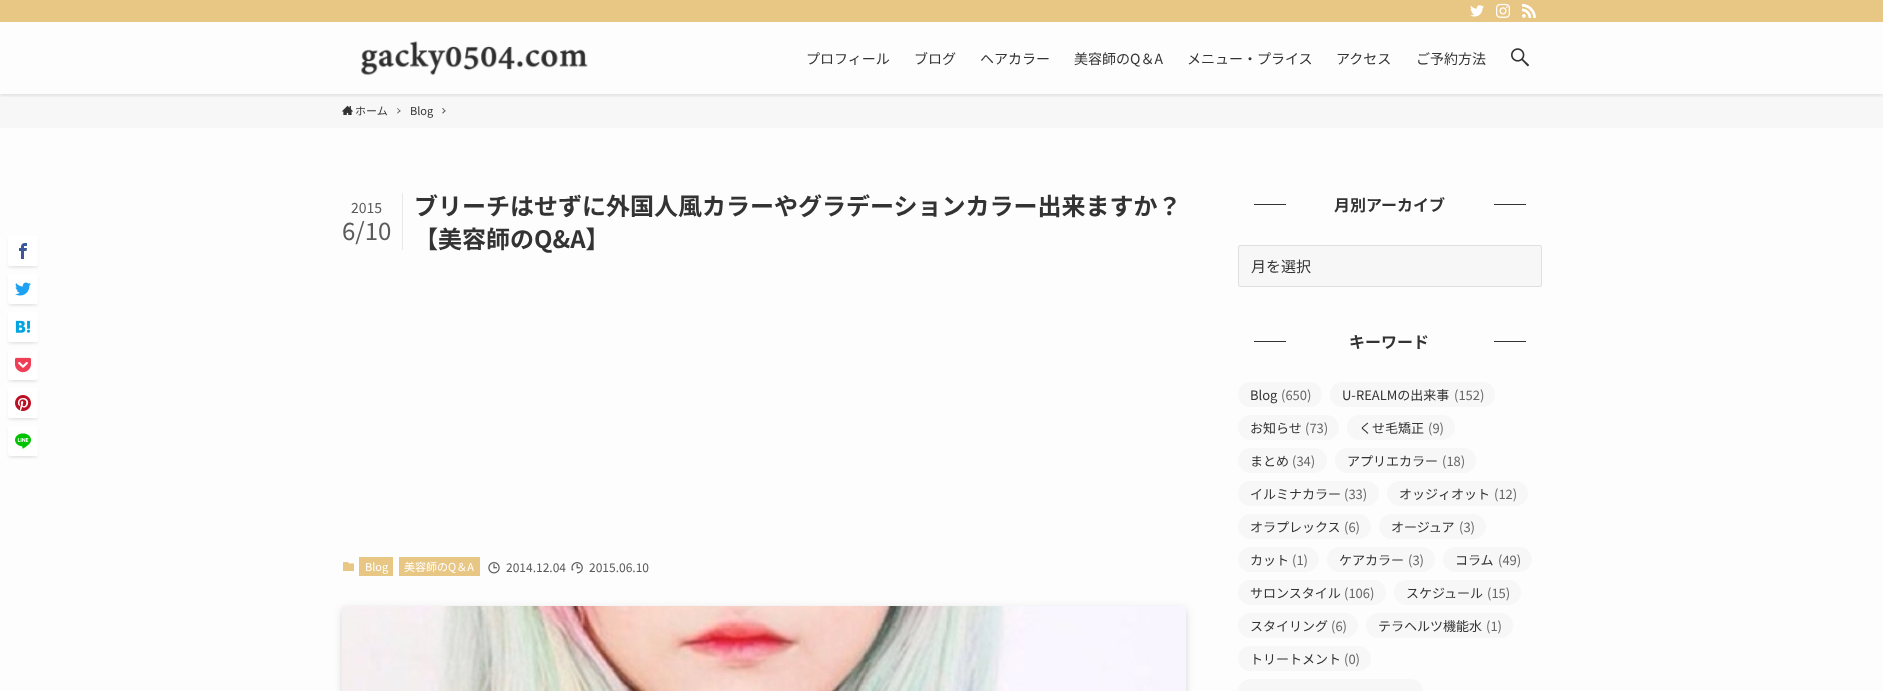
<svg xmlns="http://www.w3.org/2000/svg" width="1883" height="691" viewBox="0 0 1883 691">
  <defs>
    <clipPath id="clip1"><rect x="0" y="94" width="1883" height="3"/></clipPath>
  </defs>
  <rect width="100%" height="100%" fill="rgb(253,253,253)"/>
  <rect x="0" y="94" width="1883" height="34" fill="rgb(247,247,247)"/>
  <g clip-path="url(#clip1)">
    <rect x="0" y="1" width="1883" height="94" fill="rgba(0,0,0,0.12)" filter="blur(2px)"/>
  </g>
  <rect x="0" y="0" width="1883" height="22" fill="rgb(232,198,132)"/>
  <image x="1470" y="5" width="14" height="12" href="pic1.png"/>
  <image x="1496" y="3" width="14" height="15" href="pic2.png"/>
  <image x="1522" y="3" width="14" height="15" href="pic3.png"/>
  <image x="361" y="41" width="227" height="35" href="pic4.png"/>
  <g font-family="Noto Sans JP" font-size="14" fill="rgb(51,51,51)">
    <text x="806" y="64">プロフィール</text>
    <text x="914" y="64">ブログ</text>
    <text x="980" y="64">ヘアカラー</text>
    <text x="1074" y="64">美容師のQ＆A</text>
    <text x="1187" y="64">メニュー・プライス</text>
    <text x="1336" y="64">アクセス</text>
    <text x="1416" y="64">ご予約方法</text>
  </g>
  <image x="1511" y="48" width="18" height="19" href="pic5.png"/>
  <image x="342" y="105" width="11" height="10" href="pic6.png"/>
  <text x="355" y="115" font-family="Noto Sans JP" font-size="11" fill="rgb(51,51,51)">ホーム</text>
  <path d="M397.5 108L400.5 111L400 111.5L397 108.5Z" fill="rgb(90,90,90)"/>
  <path d="M400 110L400.5 111L397.5 113.5L397 113Z" fill="rgb(90,90,90)"/>
  <text x="410" y="115" font-family="Noto Sans JP" font-size="11" fill="rgb(51,51,51)">Blog</text>
  <path d="M443 108L445.5 111L445 111.5L442 108.5Z" fill="rgb(90,90,90)"/>
  <path d="M445 110L445.5 111L443 113.5L442 113Z" fill="rgb(90,90,90)"/>
  <rect x="402" y="193" width="1" height="57" fill="rgb(232,232,232)"/>
  <text x="351" y="213" font-family="Noto Sans JP" font-size="14" fill="rgb(91,91,91)">2015</text>
  <text x="342" y="240" font-family="Noto Sans JP" font-size="24" fill="rgb(91,91,91)">6/10</text>
  <g font-family="Noto Sans JP" font-size="24" font-weight="bold" fill="rgb(51,51,51)">
    <text>
      <tspan x="414" y="215">ブリーチはせずに外国人風カラーやグラデーションカラー出来ますか？</tspan>
      <tspan x="414" y="248">【美容師のQ&amp;A】</tspan>
    </text>
  </g>
  <rect x="12" y="244" width="22" height="22" fill="rgba(0,0,0,0.1)" filter="blur(2px)"/>
  <rect x="8" y="238" width="30" height="30" fill="rgba(0,0,0,0.05)" filter="blur(1px)"/>
  <rect x="8" y="236" width="30" height="30" rx="2" fill="rgb(255,255,255)"/>
  <image x="19" y="243" width="8" height="16" href="pic7.png"/>
  <rect x="12" y="282" width="22" height="22" fill="rgba(0,0,0,0.1)" filter="blur(2px)"/>
  <rect x="8" y="276" width="30" height="30" fill="rgba(0,0,0,0.05)" filter="blur(1px)"/>
  <rect x="8" y="274" width="30" height="30" rx="2" fill="rgb(255,255,255)"/>
  <image x="15" y="282" width="16" height="14" href="pic8.png"/>
  <rect x="12" y="320" width="22" height="22" fill="rgba(0,0,0,0.1)" filter="blur(2px)"/>
  <rect x="8" y="314" width="30" height="30" fill="rgba(0,0,0,0.05)" filter="blur(1px)"/>
  <rect x="8" y="312" width="30" height="30" rx="2" fill="rgb(255,255,255)"/>
  <image x="15" y="320" width="16" height="13" href="pic9.png"/>
  <rect x="12" y="358" width="22" height="22" fill="rgba(0,0,0,0.1)" filter="blur(2px)"/>
  <rect x="8" y="352" width="30" height="30" fill="rgba(0,0,0,0.05)" filter="blur(1px)"/>
  <rect x="8" y="350" width="30" height="30" rx="2" fill="rgb(255,255,255)"/>
  <image x="15" y="357" width="16" height="16" href="pic10.png"/>
  <rect x="12" y="396" width="22" height="22" fill="rgba(0,0,0,0.1)" filter="blur(2px)"/>
  <rect x="8" y="390" width="30" height="30" fill="rgba(0,0,0,0.05)" filter="blur(1px)"/>
  <rect x="8" y="388" width="30" height="30" rx="2" fill="rgb(255,255,255)"/>
  <image x="15" y="395" width="16" height="16" href="pic11.png"/>
  <rect x="12" y="434" width="22" height="22" fill="rgba(0,0,0,0.1)" filter="blur(2px)"/>
  <rect x="8" y="428" width="30" height="30" fill="rgba(0,0,0,0.05)" filter="blur(1px)"/>
  <rect x="8" y="426" width="30" height="30" rx="2" fill="rgb(255,255,255)"/>
  <image x="15" y="433" width="16" height="16" href="pic12.png"/>
  <image x="343" y="562" width="11" height="9" href="pic13.png"/>
  <rect x="359" y="557" width="34" height="19" fill="rgb(232,198,132)"/>
  <text x="365" y="571" font-family="Noto Sans JP" font-size="11" fill="rgb(255,255,255)">Blog</text>
  <rect x="399" y="557" width="81" height="19" fill="rgb(232,198,132)"/>
  <text x="404" y="571" font-family="Noto Sans JP" font-size="11" fill="rgb(255,255,255)">美容師のQ＆A</text>
  <image x="488" y="562" width="12" height="12" href="pic14.png"/>
  <text x="506" y="572" font-family="Noto Sans JP" font-size="12" fill="rgb(91,91,91)">2014.12.04</text>
  <image x="571" y="562" width="12" height="12" href="pic15.png"/>
  <text x="589" y="572" font-family="Noto Sans JP" font-size="12" fill="rgb(91,91,91)">2015.06.10</text>
  <rect x="346" y="614" width="836" height="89" fill="rgba(0,0,0,0.2)" filter="blur(4px)"/>
  <rect x="342" y="608" width="844" height="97" rx="2" fill="rgba(0,0,0,0.1)" filter="blur(4px)"/>
  <image x="342" y="606" width="844" height="85" href="pic16.png"/>
  <rect x="1254" y="204" width="32" height="1" fill="rgb(51,51,51)"/>
  <text x="1334" y="211" font-family="Noto Sans JP" font-size="16" font-weight="bold" fill="rgb(51,51,51)">月別アーカイブ</text>
  <rect x="1494" y="204" width="32" height="1" fill="rgb(51,51,51)"/>
  <rect x="1238.5" y="245.5" width="303" height="41" rx="1.5" fill="rgb(247,247,247)" stroke="rgb(224,224,224)"/>
  <text x="1251" y="272" font-family="Noto Sans JP" font-size="15" fill="rgb(51,51,51)">月を選択</text>
  <rect x="1254" y="341" width="32" height="1" fill="rgb(51,51,51)"/>
  <text x="1349" y="348" font-family="Noto Sans JP" font-size="16" font-weight="bold" fill="rgb(51,51,51)">キーワード</text>
  <rect x="1494" y="341" width="32" height="1" fill="rgb(51,51,51)"/>
  <rect x="1238" y="382" width="84" height="25" rx="12.5" fill="rgb(247,247,247)"/>
  <text x="1250" y="400" font-family="Noto Sans JP" font-size="13" fill="rgb(51,51,51)">Blog</text>
  <text x="1281" y="400" font-family="Noto Sans JP" font-size="13" fill="rgb(102,102,102)">(650)</text>
  <rect x="1330" y="382" width="165" height="25" rx="12.5" fill="rgb(247,247,247)"/>
  <text x="1342" y="400" font-family="Noto Sans JP" font-size="13" fill="rgb(51,51,51)">U-REALMの出来事</text>
  <text x="1454" y="400" font-family="Noto Sans JP" font-size="13" fill="rgb(102,102,102)">(152)</text>
  <rect x="1238" y="415" width="101" height="25" rx="12.5" fill="rgb(247,247,247)"/>
  <text x="1250" y="433" font-family="Noto Sans JP" font-size="13" fill="rgb(51,51,51)">お知らせ</text>
  <text x="1305" y="433" font-family="Noto Sans JP" font-size="13" fill="rgb(102,102,102)">(73)</text>
  <rect x="1347" y="415" width="108" height="25" rx="12.5" fill="rgb(247,247,247)"/>
  <text x="1359" y="433" font-family="Noto Sans JP" font-size="13" fill="rgb(51,51,51)">くせ毛矯正</text>
  <text x="1428" y="433" font-family="Noto Sans JP" font-size="13" fill="rgb(102,102,102)">(9)</text>
  <rect x="1238" y="448" width="89" height="25" rx="12.5" fill="rgb(247,247,247)"/>
  <text x="1250" y="466" font-family="Noto Sans JP" font-size="13" fill="rgb(51,51,51)">まとめ</text>
  <text x="1292" y="466" font-family="Noto Sans JP" font-size="13" fill="rgb(102,102,102)">(34)</text>
  <rect x="1335" y="448" width="141" height="25" rx="12.5" fill="rgb(247,247,247)"/>
  <text x="1347" y="466" font-family="Noto Sans JP" font-size="13" fill="rgb(51,51,51)">アプリエカラー</text>
  <text x="1442" y="466" font-family="Noto Sans JP" font-size="13" fill="rgb(102,102,102)">(18)</text>
  <rect x="1238" y="481" width="141" height="25" rx="12.5" fill="rgb(247,247,247)"/>
  <text x="1250" y="499" font-family="Noto Sans JP" font-size="13" fill="rgb(51,51,51)">イルミナカラー</text>
  <text x="1344" y="499" font-family="Noto Sans JP" font-size="13" fill="rgb(102,102,102)">(33)</text>
  <rect x="1387" y="481" width="141" height="25" rx="12.5" fill="rgb(247,247,247)"/>
  <text x="1399" y="499" font-family="Noto Sans JP" font-size="13" fill="rgb(51,51,51)">オッジィオット</text>
  <text x="1494" y="499" font-family="Noto Sans JP" font-size="13" fill="rgb(102,102,102)">(12)</text>
  <rect x="1238" y="514" width="133" height="25" rx="12.5" fill="rgb(247,247,247)"/>
  <text x="1250" y="532" font-family="Noto Sans JP" font-size="13" fill="rgb(51,51,51)">オラプレックス</text>
  <text x="1344" y="532" font-family="Noto Sans JP" font-size="13" fill="rgb(102,102,102)">(6)</text>
  <rect x="1379" y="514" width="107" height="25" rx="12.5" fill="rgb(247,247,247)"/>
  <text x="1391" y="532" font-family="Noto Sans JP" font-size="13" fill="rgb(51,51,51)">オージュア</text>
  <text x="1459" y="532" font-family="Noto Sans JP" font-size="13" fill="rgb(102,102,102)">(3)</text>
  <rect x="1238" y="547" width="81" height="25" rx="12.5" fill="rgb(247,247,247)"/>
  <text x="1250" y="565" font-family="Noto Sans JP" font-size="13" fill="rgb(51,51,51)">カット</text>
  <text x="1292" y="565" font-family="Noto Sans JP" font-size="13" fill="rgb(102,102,102)">(1)</text>
  <rect x="1327" y="547" width="108" height="25" rx="12.5" fill="rgb(247,247,247)"/>
  <text x="1339" y="565" font-family="Noto Sans JP" font-size="13" fill="rgb(51,51,51)">ケアカラー</text>
  <text x="1408" y="565" font-family="Noto Sans JP" font-size="13" fill="rgb(102,102,102)">(3)</text>
  <rect x="1443" y="547" width="89" height="25" rx="12.5" fill="rgb(247,247,247)"/>
  <text x="1455" y="565" font-family="Noto Sans JP" font-size="13" fill="rgb(51,51,51)">コラム</text>
  <text x="1498" y="565" font-family="Noto Sans JP" font-size="13" fill="rgb(102,102,102)">(49)</text>
  <rect x="1238" y="580" width="148" height="25" rx="12.5" fill="rgb(247,247,247)"/>
  <text x="1250" y="598" font-family="Noto Sans JP" font-size="13" fill="rgb(51,51,51)">サロンスタイル</text>
  <text x="1344" y="598" font-family="Noto Sans JP" font-size="13" fill="rgb(102,102,102)">(106)</text>
  <rect x="1394" y="580" width="127" height="25" rx="12.5" fill="rgb(247,247,247)"/>
  <text x="1406" y="598" font-family="Noto Sans JP" font-size="13" fill="rgb(51,51,51)">スケジュール</text>
  <text x="1487" y="598" font-family="Noto Sans JP" font-size="13" fill="rgb(102,102,102)">(15)</text>
  <rect x="1238" y="613" width="120" height="25" rx="12.5" fill="rgb(247,247,247)"/>
  <text x="1250" y="631" font-family="Noto Sans JP" font-size="13" fill="rgb(51,51,51)">スタイリング</text>
  <text x="1331" y="631" font-family="Noto Sans JP" font-size="13" fill="rgb(102,102,102)">(6)</text>
  <rect x="1366" y="613" width="147" height="25" rx="12.5" fill="rgb(247,247,247)"/>
  <text x="1378" y="631" font-family="Noto Sans JP" font-size="13" fill="rgb(51,51,51)">テラヘルツ機能水</text>
  <text x="1486" y="631" font-family="Noto Sans JP" font-size="13" fill="rgb(102,102,102)">(1)</text>
  <rect x="1238" y="646" width="133" height="25" rx="12.5" fill="rgb(247,247,247)"/>
  <text x="1250" y="664" font-family="Noto Sans JP" font-size="13" fill="rgb(51,51,51)">トリートメント</text>
  <text x="1344" y="664" font-family="Noto Sans JP" font-size="13" fill="rgb(102,102,102)">(0)</text>
  <rect x="1238" y="679" width="185" height="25" rx="12.5" fill="rgb(247,247,247)"/>
</svg>
